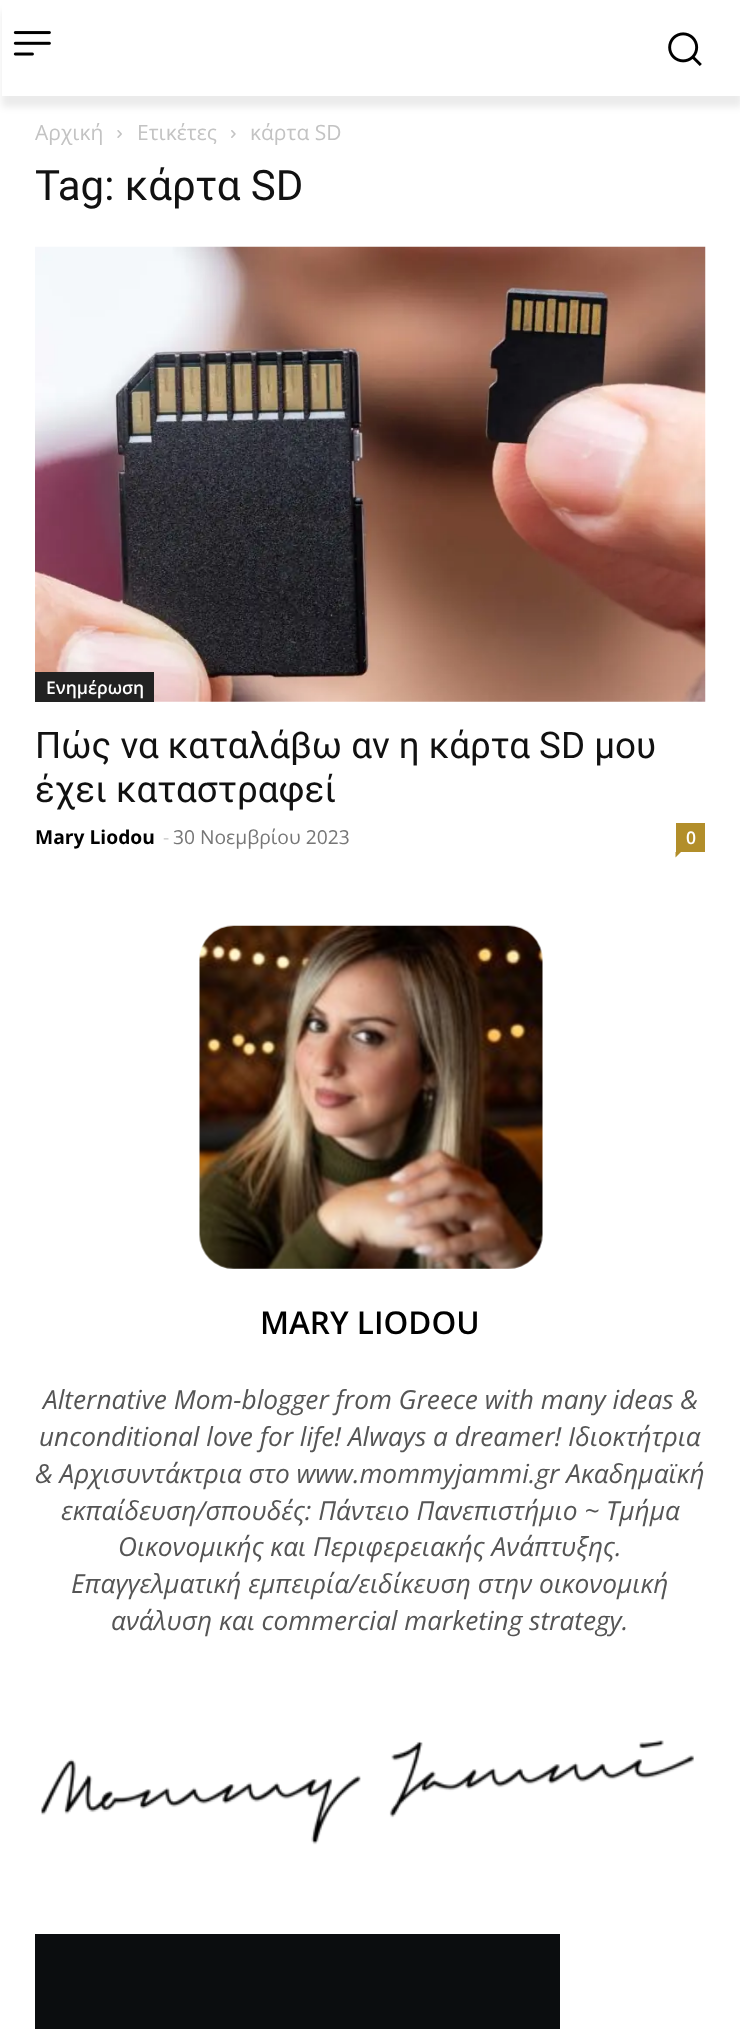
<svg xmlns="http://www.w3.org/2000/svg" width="740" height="2029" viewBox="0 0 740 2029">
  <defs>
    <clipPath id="clip1"><path d="M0 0H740V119H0ZM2 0H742V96H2Z" clip-rule="evenodd"/></clipPath>
  </defs>
  <rect width="100%" height="100%" fill="rgb(255,255,255)"/>
  <image x="13" y="31" width="38" height="25" href="pic1.png"/>
  <image x="668" y="32" width="34" height="34" href="pic2.png"/>
  <g clip-path="url(#clip1)">
    <rect x="2" y="11" width="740" height="96" fill="rgba(0,0,0,0.08)" filter="blur(3.5px)"/>
  </g>
  <text x="35" y="140" font-family="Open Sans" font-size="21" fill="rgb(195,195,195)">Αρχική</text>
  <image x="117" y="130" width="5" height="8" href="pic3.png"/>
  <text x="137" y="140" font-family="Open Sans" font-size="21" fill="rgb(195,195,195)">Ετικέτες</text>
  <image x="231" y="130" width="5" height="8" href="pic4.png"/>
  <text x="250" y="140" font-family="Open Sans" font-size="21" fill="rgb(195,195,195)">κάρτα SD</text>
  <text x="35" y="200" font-family="Roboto" font-size="42" fill="rgb(17,17,17)">Tag: κάρτα SD</text>
  <image x="35" y="246" width="671" height="456" href="pic5.png"/>
  <rect x="35" y="672" width="119" height="30" fill="rgb(34,34,34)"/>
  <text x="46" y="694" font-family="Open Sans" font-size="17.5" font-weight="600" fill="rgb(255,255,255)">Ενημέρωση</text>
  <g font-family="Roboto" font-size="36.75" fill="rgb(17,17,17)">
    <text>
      <tspan x="35" y="758">Πώς να καταλάβω αν η κάρτα SD μου</tspan>
      <tspan x="35" y="802">έχει καταστραφεί</tspan>
    </text>
  </g>
  <text x="35" y="844" font-family="Open Sans" font-size="19.25" font-weight="bold" fill="rgb(0,0,0)">Mary Liodou</text>
  <text x="163" y="844" font-family="Open Sans" font-size="19.25" fill="rgb(204,204,204)">-</text>
  <text x="173" y="844" font-family="Open Sans" font-size="19.25" fill="rgb(118,118,118)">30 Νοεμβρίου 2023</text>
  <rect x="676" y="823" width="29" height="29" fill="rgb(178,142,42)"/>
  <text x="686" y="844" font-family="Open Sans" font-size="17.5" font-weight="600" fill="rgb(255,255,255)">0</text>
  <path d="M675.5 852H681L675.5 857.5Z" fill="rgb(178,142,42)"/>
  <image x="199" y="925" width="344" height="344" href="pic6.png"/>
  <text x="260" y="1334" font-family="Open Sans" font-size="31.5" font-weight="600" fill="rgb(0,0,0)">MARY LIODOU</text>
  <g font-family="Open Sans" font-size="26.25" font-style="italic" fill="rgb(85,85,85)">
    <text x="43" y="1409">Alternative Mom-blogger from Greece with many ideas &amp;</text>
    <text x="39" y="1446">unconditional love for life! Always a dreamer! Ιδιοκτήτρια</text>
    <text x="35" y="1483">&amp; Αρχισυντάκτρια στο www.mommyjammi.gr Ακαδημαϊκή</text>
    <text x="61" y="1520">εκπαίδευση/σπουδές: Πάντειο Πανεπιστήμιο ~ Τμήμα</text>
    <text x="118" y="1556">Οικονομικής και Περιφερειακής Ανάπτυξης.</text>
    <text x="71" y="1593">Επαγγελματική εμπειρία/ειδίκευση στην οικονομική</text>
    <text x="111" y="1630">ανάλυση και commercial marketing strategy.</text>
  </g>
  <image x="40" y="1740" width="654" height="105" href="pic7.png"/>
  <rect x="35" y="1934" width="525" height="95" fill="rgb(11,13,15)"/>
</svg>
